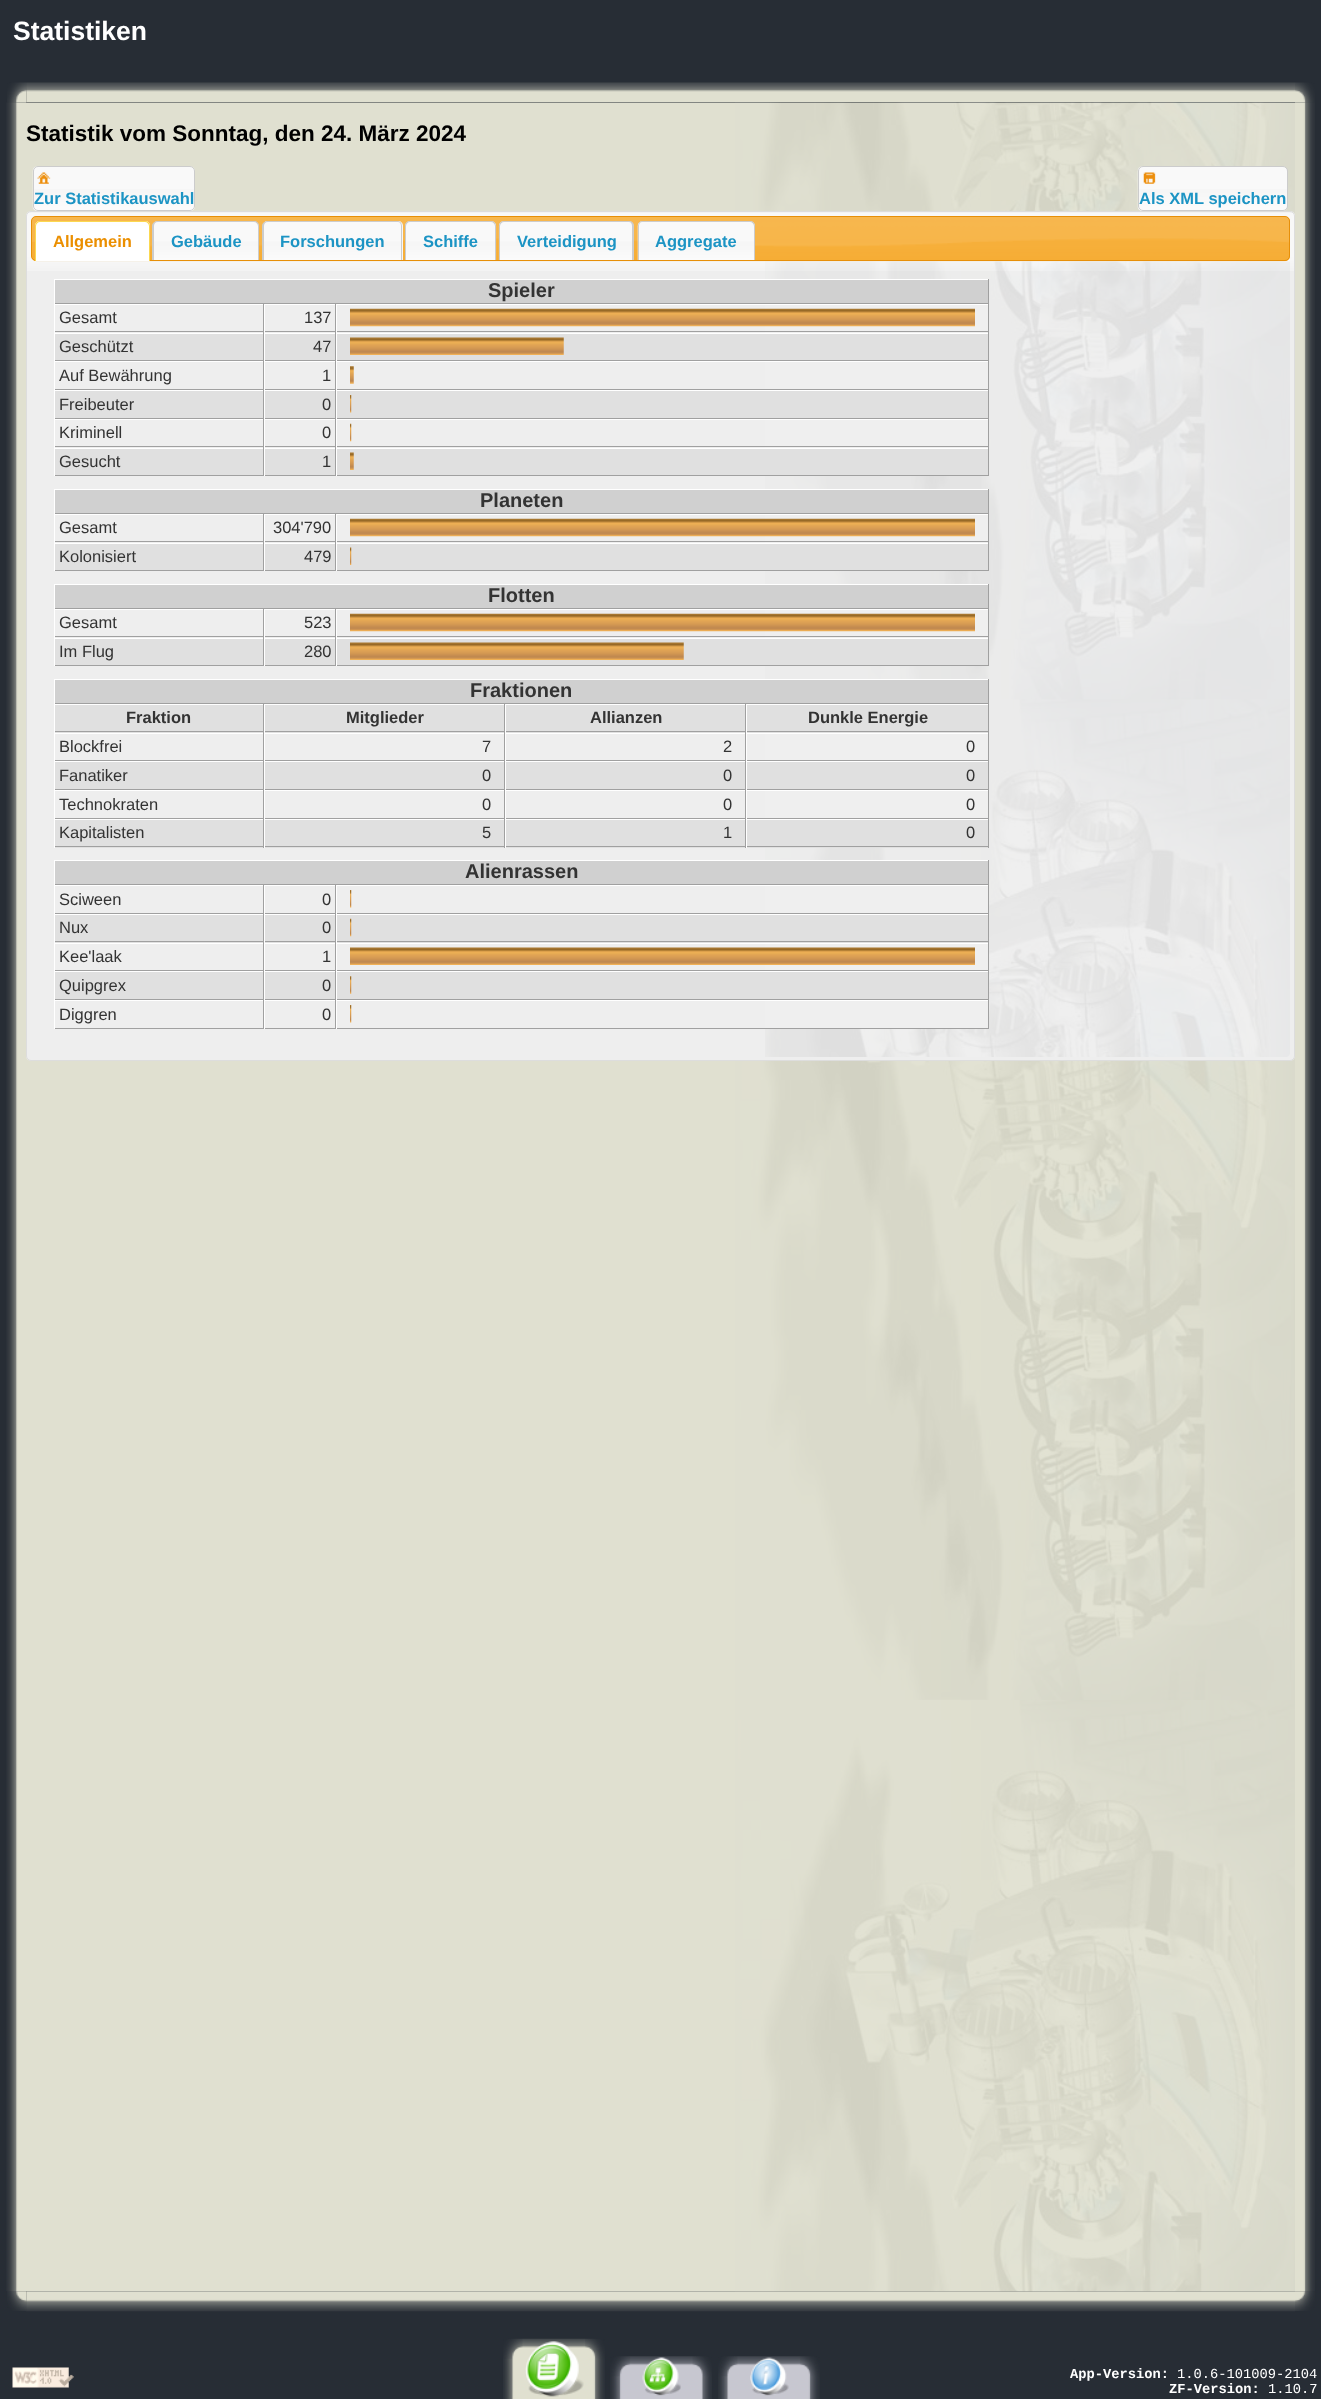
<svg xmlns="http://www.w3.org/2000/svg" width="1321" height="2399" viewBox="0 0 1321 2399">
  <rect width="100%" height="100%" fill="rgb(39,45,53)"/>
  <text x="13" y="40" font-family="Liberation Sans" font-size="26.5" font-weight="bold" fill="rgb(255,255,255)">Statistiken</text>
  <image x="7" y="82" width="20" height="21" href="pic1.png"/>
  <image x="26" y="82" width="1269" height="21" href="pic2.png"/>
  <image x="1295" y="82" width="20" height="21" href="pic3.png"/>
  <image x="6" y="102" width="21" height="2190" href="pic4.png"/>
  <rect x="26" y="103" width="1269" height="2188" fill="rgb(224,224,208)"/>
  <image x="735" y="102" width="560" height="2190" href="pic5.png"/>
  <text x="26" y="141" font-family="Liberation Sans" font-size="22.5" font-weight="bold" fill="rgb(0,0,0)">Statistik vom Sonntag, den 24. März 2024</text>
  <image x="32" y="166" width="163" height="45" href="pic6.png"/>
  <rect x="33.5" y="166.5" width="161" height="44" rx="4.5" fill="none" stroke="rgb(204,204,204)"/>
  <image x="37" y="172" width="14" height="12" href="pic7.png"/>
  <text x="34" y="204" font-family="Liberation Sans" font-size="16.5" font-weight="bold" fill="rgb(28,148,196)">Zur Statistikauswahl</text>
  <image x="1137" y="166" width="150" height="45" href="pic8.png"/>
  <rect x="1138.5" y="166.5" width="149" height="44" rx="4.5" fill="none" stroke="rgb(204,204,204)"/>
  <image x="1143" y="172" width="13" height="12" href="pic9.png"/>
  <text x="1139" y="204" font-family="Liberation Sans" font-size="16.5" font-weight="bold" fill="rgb(28,148,196)">Als XML speichern</text>
  <rect x="26" y="211" width="1269" height="850" rx="5" fill="rgb(238,238,238)"/>
  <image x="26" y="212" width="1269" height="59" href="pic10.png"/>
  <rect x="26.5" y="211.5" width="1268" height="849" rx="4.5" fill="none" stroke="rgb(221,221,221)"/>
  <image x="31" y="216" width="1259" height="46" href="pic11.png"/>
  <rect x="31.5" y="216.5" width="1258" height="44" rx="4.5" fill="none" stroke="rgb(231,143,8)"/>
  <path d="M40 221H145C148 221 150 223 150 226V261H35V226C35 223 37 221 40 221Z" fill="rgb(255,255,255)"/>
  <image x="35" y="221" width="115" height="5" href="pic12.png"/>
  <path d="M40 221H145C148 221 150 223 150 226V261H35V226C35 223 37 221 40 221ZM40 222H145C147 222 149 224 149 226V261H36V226C36 224 38 222 40 222Z" fill="rgb(251,216,80)" fill-rule="evenodd"/>
  <text x="53" y="247" font-family="Liberation Sans" font-size="16.5" font-weight="bold" fill="rgb(235,143,0)">Allgemein</text>
  <image x="152" y="221" width="107" height="39" href="pic13.png"/>
  <path d="M158 221H254C257 221 259 223 259 226V260H152V226C152 223 155 221 158 221ZM158 222H254C256 222 258 224 258 226V260H154V226C154 224 155 222 158 222Z" fill="rgb(204,204,204)" fill-rule="evenodd"/>
  <text x="171" y="247" font-family="Liberation Sans" font-size="16.5" font-weight="bold" fill="rgb(28,148,196)">Gebäude</text>
  <path d="M268 221H398C401 221 403 223 403 226V260H263V226C263 223 265 221 268 221Z" fill="rgb(246,246,246)"/>
  <image x="262" y="221" width="140" height="39" href="pic14.png"/>
  <path d="M268 221H398C400 221 402 223 402 226V260H262V226C262 223 265 221 268 221ZM268 222H398C400 222 401 224 401 226V260H264V226C264 224 265 222 268 222Z" fill="rgb(204,204,204)" fill-rule="evenodd"/>
  <text x="280" y="247" font-family="Liberation Sans" font-size="16.5" font-weight="bold" fill="rgb(28,148,196)">Forschungen</text>
  <image x="405" y="221" width="92" height="39" href="pic15.png"/>
  <path d="M410 221H491C494 221 496 223 496 226V260H405V226C405 223 407 221 410 221ZM410 222H491C493 222 495 224 495 226V260H406V226C406 224 408 222 410 222Z" fill="rgb(204,204,204)" fill-rule="evenodd"/>
  <text x="423" y="247" font-family="Liberation Sans" font-size="16.5" font-weight="bold" fill="rgb(28,148,196)">Schiffe</text>
  <image x="498" y="221" width="136" height="39" href="pic16.png"/>
  <path d="M504 221H629C632 221 634 223 634 226V260H499V226C499 223 501 221 504 221ZM504 222H629C631 222 632 224 632 226V260H500V226C500 224 502 222 504 222Z" fill="rgb(204,204,204)" fill-rule="evenodd"/>
  <text x="517" y="247" font-family="Liberation Sans" font-size="16.5" font-weight="bold" fill="rgb(28,148,196)">Verteidigung</text>
  <image x="637" y="221" width="118" height="39" href="pic17.png"/>
  <path d="M642 221H750C753 221 755 223 755 226V260H638V226C638 223 640 221 642 221ZM642 222H750C752 222 754 224 754 226V260H639V226C639 224 640 222 642 222Z" fill="rgb(204,204,204)" fill-rule="evenodd"/>
  <text x="655" y="247" font-family="Liberation Sans" font-size="16.5" font-weight="bold" fill="rgb(28,148,196)">Aggregate</text>
  <image x="765" y="261" width="525" height="796" href="pic18.png"/>
  <rect x="55" y="280" width="933" height="23" fill="rgb(208,208,208)"/>
  <rect x="54" y="279" width="935" height="1" fill="rgb(255,255,255)"/>
  <rect x="988" y="279" width="1" height="25" fill="rgb(160,160,160)"/>
  <rect x="54" y="303" width="935" height="1" fill="rgb(160,160,160)"/>
  <rect x="54" y="279" width="1" height="25" fill="rgb(255,255,255)"/>
  <text x="488" y="297" font-family="Liberation Sans" font-size="20" font-weight="bold" fill="rgb(51,51,51)">Spieler</text>
  <rect x="54" y="304" width="935" height="1" fill="rgb(255,255,255)"/>
  <rect x="263" y="304" width="1" height="29" fill="rgb(160,160,160)"/>
  <rect x="54" y="331" width="210" height="1" fill="rgb(160,160,160)"/>
  <rect x="54" y="304" width="1" height="29" fill="rgb(255,255,255)"/>
  <text x="59" y="323" font-family="Liberation Sans" font-size="16.5" fill="rgb(51,51,51)">Gesamt</text>
  <rect x="335" y="304" width="1" height="29" fill="rgb(160,160,160)"/>
  <rect x="264" y="331" width="72" height="1" fill="rgb(160,160,160)"/>
  <rect x="264" y="304" width="1" height="29" fill="rgb(255,255,255)"/>
  <text x="304" y="323" font-family="Liberation Sans" font-size="16.5" fill="rgb(51,51,51)">137</text>
  <rect x="765" y="305" width="223" height="28" fill="rgb(239,239,239)"/>
  <rect x="988" y="304" width="1" height="29" fill="rgb(160,160,160)"/>
  <rect x="336" y="331" width="653" height="1" fill="rgb(160,160,160)"/>
  <rect x="336" y="304" width="1" height="29" fill="rgb(255,255,255)"/>
  <image x="350" y="308" width="625" height="19" href="pic19.png"/>
  <rect x="55" y="334" width="208" height="26" fill="rgb(224,224,224)"/>
  <rect x="54" y="333" width="935" height="1" fill="rgb(255,255,255)"/>
  <rect x="263" y="333" width="1" height="28" fill="rgb(160,160,160)"/>
  <rect x="54" y="360" width="210" height="1" fill="rgb(160,160,160)"/>
  <rect x="54" y="333" width="1" height="28" fill="rgb(255,255,255)"/>
  <text x="59" y="352" font-family="Liberation Sans" font-size="16.5" fill="rgb(51,51,51)">Geschützt</text>
  <rect x="265" y="334" width="70" height="26" fill="rgb(224,224,224)"/>
  <rect x="335" y="333" width="1" height="28" fill="rgb(160,160,160)"/>
  <rect x="264" y="360" width="72" height="1" fill="rgb(160,160,160)"/>
  <rect x="264" y="333" width="1" height="28" fill="rgb(255,255,255)"/>
  <text x="313" y="352" font-family="Liberation Sans" font-size="16.5" fill="rgb(51,51,51)">47</text>
  <rect x="337" y="334" width="651" height="26" fill="rgb(224,224,224)"/>
  <rect x="988" y="333" width="1" height="28" fill="rgb(160,160,160)"/>
  <rect x="336" y="360" width="653" height="1" fill="rgb(160,160,160)"/>
  <rect x="336" y="333" width="1" height="28" fill="rgb(255,255,255)"/>
  <image x="350" y="337" width="214" height="18" href="pic20.png"/>
  <rect x="54" y="361" width="935" height="1" fill="rgb(255,255,255)"/>
  <rect x="263" y="361" width="1" height="29" fill="rgb(160,160,160)"/>
  <rect x="54" y="389" width="210" height="1" fill="rgb(160,160,160)"/>
  <rect x="54" y="361" width="1" height="29" fill="rgb(255,255,255)"/>
  <text x="59" y="381" font-family="Liberation Sans" font-size="16.5" fill="rgb(51,51,51)">Auf Bewährung</text>
  <rect x="335" y="361" width="1" height="29" fill="rgb(160,160,160)"/>
  <rect x="264" y="389" width="72" height="1" fill="rgb(160,160,160)"/>
  <rect x="264" y="361" width="1" height="29" fill="rgb(255,255,255)"/>
  <text x="322" y="381" font-family="Liberation Sans" font-size="16.5" fill="rgb(51,51,51)">1</text>
  <rect x="765" y="362" width="223" height="27" fill="rgb(239,239,239)"/>
  <rect x="988" y="361" width="1" height="29" fill="rgb(160,160,160)"/>
  <rect x="336" y="389" width="653" height="1" fill="rgb(160,160,160)"/>
  <rect x="336" y="361" width="1" height="29" fill="rgb(255,255,255)"/>
  <image x="350" y="366" width="4" height="18" href="pic21.png"/>
  <rect x="55" y="391" width="208" height="27" fill="rgb(224,224,224)"/>
  <rect x="54" y="390" width="935" height="1" fill="rgb(255,255,255)"/>
  <rect x="263" y="390" width="1" height="29" fill="rgb(160,160,160)"/>
  <rect x="54" y="418" width="210" height="1" fill="rgb(160,160,160)"/>
  <rect x="54" y="390" width="1" height="29" fill="rgb(255,255,255)"/>
  <text x="59" y="410" font-family="Liberation Sans" font-size="16.5" fill="rgb(51,51,51)">Freibeuter</text>
  <rect x="265" y="391" width="70" height="27" fill="rgb(224,224,224)"/>
  <rect x="335" y="390" width="1" height="29" fill="rgb(160,160,160)"/>
  <rect x="264" y="418" width="72" height="1" fill="rgb(160,160,160)"/>
  <rect x="264" y="390" width="1" height="29" fill="rgb(255,255,255)"/>
  <text x="322" y="410" font-family="Liberation Sans" font-size="16.5" fill="rgb(51,51,51)">0</text>
  <rect x="337" y="391" width="651" height="27" fill="rgb(224,224,224)"/>
  <rect x="988" y="390" width="1" height="29" fill="rgb(160,160,160)"/>
  <rect x="336" y="418" width="653" height="1" fill="rgb(160,160,160)"/>
  <rect x="336" y="390" width="1" height="29" fill="rgb(255,255,255)"/>
  <image x="350" y="395" width="2" height="18" href="pic22.png"/>
  <rect x="54" y="419" width="935" height="1" fill="rgb(255,255,255)"/>
  <rect x="263" y="419" width="1" height="29" fill="rgb(160,160,160)"/>
  <rect x="54" y="446" width="210" height="1" fill="rgb(160,160,160)"/>
  <rect x="54" y="419" width="1" height="29" fill="rgb(255,255,255)"/>
  <text x="59" y="438" font-family="Liberation Sans" font-size="16.5" fill="rgb(51,51,51)">Kriminell</text>
  <rect x="335" y="419" width="1" height="29" fill="rgb(160,160,160)"/>
  <rect x="264" y="446" width="72" height="1" fill="rgb(160,160,160)"/>
  <rect x="264" y="419" width="1" height="29" fill="rgb(255,255,255)"/>
  <text x="322" y="438" font-family="Liberation Sans" font-size="16.5" fill="rgb(51,51,51)">0</text>
  <rect x="765" y="420" width="223" height="28" fill="rgb(239,239,239)"/>
  <rect x="988" y="419" width="1" height="29" fill="rgb(160,160,160)"/>
  <rect x="336" y="446" width="653" height="1" fill="rgb(160,160,160)"/>
  <rect x="336" y="419" width="1" height="29" fill="rgb(255,255,255)"/>
  <image x="350" y="423" width="2" height="19" href="pic23.png"/>
  <rect x="55" y="449" width="208" height="26" fill="rgb(224,224,224)"/>
  <rect x="54" y="448" width="935" height="1" fill="rgb(255,255,255)"/>
  <rect x="263" y="448" width="1" height="28" fill="rgb(160,160,160)"/>
  <rect x="54" y="475" width="210" height="1" fill="rgb(160,160,160)"/>
  <rect x="54" y="448" width="1" height="28" fill="rgb(255,255,255)"/>
  <text x="59" y="467" font-family="Liberation Sans" font-size="16.5" fill="rgb(51,51,51)">Gesucht</text>
  <rect x="265" y="449" width="70" height="26" fill="rgb(224,224,224)"/>
  <rect x="335" y="448" width="1" height="28" fill="rgb(160,160,160)"/>
  <rect x="264" y="475" width="72" height="1" fill="rgb(160,160,160)"/>
  <rect x="264" y="448" width="1" height="28" fill="rgb(255,255,255)"/>
  <text x="322" y="467" font-family="Liberation Sans" font-size="16.5" fill="rgb(51,51,51)">1</text>
  <rect x="337" y="449" width="651" height="26" fill="rgb(224,224,224)"/>
  <rect x="988" y="448" width="1" height="28" fill="rgb(160,160,160)"/>
  <rect x="336" y="475" width="653" height="1" fill="rgb(160,160,160)"/>
  <rect x="336" y="448" width="1" height="28" fill="rgb(255,255,255)"/>
  <image x="350" y="452" width="4" height="18" href="pic24.png"/>
  <rect x="55" y="490" width="933" height="23" fill="rgb(208,208,208)"/>
  <rect x="54" y="489" width="935" height="1" fill="rgb(255,255,255)"/>
  <rect x="988" y="489" width="1" height="25" fill="rgb(160,160,160)"/>
  <rect x="54" y="513" width="935" height="1" fill="rgb(160,160,160)"/>
  <rect x="54" y="489" width="1" height="25" fill="rgb(255,255,255)"/>
  <text x="480" y="507" font-family="Liberation Sans" font-size="20" font-weight="bold" fill="rgb(51,51,51)">Planeten</text>
  <rect x="54" y="514" width="935" height="1" fill="rgb(255,255,255)"/>
  <rect x="263" y="514" width="1" height="29" fill="rgb(160,160,160)"/>
  <rect x="54" y="541" width="210" height="1" fill="rgb(160,160,160)"/>
  <rect x="54" y="514" width="1" height="29" fill="rgb(255,255,255)"/>
  <text x="59" y="533" font-family="Liberation Sans" font-size="16.5" fill="rgb(51,51,51)">Gesamt</text>
  <rect x="335" y="514" width="1" height="29" fill="rgb(160,160,160)"/>
  <rect x="264" y="541" width="72" height="1" fill="rgb(160,160,160)"/>
  <rect x="264" y="514" width="1" height="29" fill="rgb(255,255,255)"/>
  <text x="273" y="533" font-family="Liberation Sans" font-size="16.5" fill="rgb(51,51,51)">304'790</text>
  <rect x="765" y="515" width="223" height="28" fill="rgb(239,239,239)"/>
  <rect x="988" y="514" width="1" height="29" fill="rgb(160,160,160)"/>
  <rect x="336" y="541" width="653" height="1" fill="rgb(160,160,160)"/>
  <rect x="336" y="514" width="1" height="29" fill="rgb(255,255,255)"/>
  <image x="350" y="518" width="625" height="19" href="pic19.png"/>
  <rect x="55" y="544" width="208" height="26" fill="rgb(224,224,224)"/>
  <rect x="54" y="543" width="935" height="1" fill="rgb(255,255,255)"/>
  <rect x="263" y="543" width="1" height="28" fill="rgb(160,160,160)"/>
  <rect x="54" y="570" width="210" height="1" fill="rgb(160,160,160)"/>
  <rect x="54" y="543" width="1" height="28" fill="rgb(255,255,255)"/>
  <text x="59" y="562" font-family="Liberation Sans" font-size="16.5" fill="rgb(51,51,51)">Kolonisiert</text>
  <rect x="265" y="544" width="70" height="26" fill="rgb(224,224,224)"/>
  <rect x="335" y="543" width="1" height="28" fill="rgb(160,160,160)"/>
  <rect x="264" y="570" width="72" height="1" fill="rgb(160,160,160)"/>
  <rect x="264" y="543" width="1" height="28" fill="rgb(255,255,255)"/>
  <text x="304" y="562" font-family="Liberation Sans" font-size="16.5" fill="rgb(51,51,51)">479</text>
  <rect x="337" y="544" width="651" height="26" fill="rgb(224,224,224)"/>
  <rect x="988" y="543" width="1" height="28" fill="rgb(160,160,160)"/>
  <rect x="336" y="570" width="653" height="1" fill="rgb(160,160,160)"/>
  <rect x="336" y="543" width="1" height="28" fill="rgb(255,255,255)"/>
  <image x="350" y="547" width="2" height="18" href="pic25.png"/>
  <rect x="55" y="585" width="933" height="23" fill="rgb(208,208,208)"/>
  <rect x="54" y="584" width="935" height="1" fill="rgb(255,255,255)"/>
  <rect x="988" y="584" width="1" height="25" fill="rgb(160,160,160)"/>
  <rect x="54" y="608" width="935" height="1" fill="rgb(160,160,160)"/>
  <rect x="54" y="584" width="1" height="25" fill="rgb(255,255,255)"/>
  <text x="488" y="602" font-family="Liberation Sans" font-size="20" font-weight="bold" fill="rgb(51,51,51)">Flotten</text>
  <rect x="54" y="609" width="935" height="1" fill="rgb(255,255,255)"/>
  <rect x="263" y="609" width="1" height="29" fill="rgb(160,160,160)"/>
  <rect x="54" y="636" width="210" height="1" fill="rgb(160,160,160)"/>
  <rect x="54" y="609" width="1" height="29" fill="rgb(255,255,255)"/>
  <text x="59" y="628" font-family="Liberation Sans" font-size="16.5" fill="rgb(51,51,51)">Gesamt</text>
  <rect x="335" y="609" width="1" height="29" fill="rgb(160,160,160)"/>
  <rect x="264" y="636" width="72" height="1" fill="rgb(160,160,160)"/>
  <rect x="264" y="609" width="1" height="29" fill="rgb(255,255,255)"/>
  <text x="304" y="628" font-family="Liberation Sans" font-size="16.5" fill="rgb(51,51,51)">523</text>
  <rect x="765" y="610" width="223" height="28" fill="rgb(239,239,239)"/>
  <rect x="988" y="609" width="1" height="29" fill="rgb(160,160,160)"/>
  <rect x="336" y="636" width="653" height="1" fill="rgb(160,160,160)"/>
  <rect x="336" y="609" width="1" height="29" fill="rgb(255,255,255)"/>
  <image x="350" y="613" width="625" height="19" href="pic19.png"/>
  <rect x="55" y="639" width="208" height="26" fill="rgb(224,224,224)"/>
  <rect x="54" y="638" width="935" height="1" fill="rgb(255,255,255)"/>
  <rect x="263" y="638" width="1" height="28" fill="rgb(160,160,160)"/>
  <rect x="54" y="665" width="210" height="1" fill="rgb(160,160,160)"/>
  <rect x="54" y="638" width="1" height="28" fill="rgb(255,255,255)"/>
  <text x="59" y="657" font-family="Liberation Sans" font-size="16.5" fill="rgb(51,51,51)">Im Flug</text>
  <rect x="265" y="639" width="70" height="26" fill="rgb(224,224,224)"/>
  <rect x="335" y="638" width="1" height="28" fill="rgb(160,160,160)"/>
  <rect x="264" y="665" width="72" height="1" fill="rgb(160,160,160)"/>
  <rect x="264" y="638" width="1" height="28" fill="rgb(255,255,255)"/>
  <text x="304" y="657" font-family="Liberation Sans" font-size="16.5" fill="rgb(51,51,51)">280</text>
  <rect x="337" y="639" width="651" height="26" fill="rgb(224,224,224)"/>
  <rect x="988" y="638" width="1" height="28" fill="rgb(160,160,160)"/>
  <rect x="336" y="665" width="653" height="1" fill="rgb(160,160,160)"/>
  <rect x="336" y="638" width="1" height="28" fill="rgb(255,255,255)"/>
  <image x="350" y="642" width="334" height="18" href="pic26.png"/>
  <rect x="55" y="680" width="933" height="23" fill="rgb(208,208,208)"/>
  <rect x="54" y="679" width="935" height="1" fill="rgb(255,255,255)"/>
  <rect x="988" y="679" width="1" height="25" fill="rgb(160,160,160)"/>
  <rect x="54" y="703" width="935" height="1" fill="rgb(160,160,160)"/>
  <rect x="54" y="679" width="1" height="25" fill="rgb(255,255,255)"/>
  <text x="470" y="697" font-family="Liberation Sans" font-size="20" font-weight="bold" fill="rgb(51,51,51)">Fraktionen</text>
  <rect x="55" y="705" width="208" height="28" fill="rgb(224,224,224)"/>
  <rect x="54" y="704" width="935" height="1" fill="rgb(255,255,255)"/>
  <rect x="263" y="704" width="1" height="29" fill="rgb(160,160,160)"/>
  <rect x="54" y="731" width="210" height="1" fill="rgb(160,160,160)"/>
  <rect x="54" y="704" width="1" height="29" fill="rgb(255,255,255)"/>
  <text x="126" y="723" font-family="Liberation Sans" font-size="16.5" font-weight="bold" fill="rgb(51,51,51)">Fraktion</text>
  <rect x="265" y="705" width="239" height="28" fill="rgb(224,224,224)"/>
  <rect x="504" y="704" width="1" height="29" fill="rgb(160,160,160)"/>
  <rect x="264" y="731" width="241" height="1" fill="rgb(160,160,160)"/>
  <rect x="264" y="704" width="1" height="29" fill="rgb(255,255,255)"/>
  <text x="346" y="723" font-family="Liberation Sans" font-size="16.5" font-weight="bold" fill="rgb(51,51,51)">Mitglieder</text>
  <rect x="506" y="705" width="239" height="28" fill="rgb(224,224,224)"/>
  <rect x="745" y="704" width="1" height="29" fill="rgb(160,160,160)"/>
  <rect x="505" y="731" width="241" height="1" fill="rgb(160,160,160)"/>
  <rect x="505" y="704" width="1" height="29" fill="rgb(255,255,255)"/>
  <text x="590" y="723" font-family="Liberation Sans" font-size="16.5" font-weight="bold" fill="rgb(51,51,51)">Allianzen</text>
  <rect x="747" y="705" width="241" height="28" fill="rgb(224,224,224)"/>
  <rect x="988" y="704" width="1" height="29" fill="rgb(160,160,160)"/>
  <rect x="746" y="731" width="243" height="1" fill="rgb(160,160,160)"/>
  <rect x="746" y="704" width="1" height="29" fill="rgb(255,255,255)"/>
  <text x="808" y="723" font-family="Liberation Sans" font-size="16.5" font-weight="bold" fill="rgb(51,51,51)">Dunkle Energie</text>
  <rect x="54" y="733" width="935" height="1" fill="rgb(255,255,255)"/>
  <rect x="263" y="733" width="1" height="28" fill="rgb(160,160,160)"/>
  <rect x="54" y="760" width="210" height="1" fill="rgb(160,160,160)"/>
  <rect x="54" y="733" width="1" height="28" fill="rgb(255,255,255)"/>
  <text x="59" y="752" font-family="Liberation Sans" font-size="16.5" fill="rgb(51,51,51)">Blockfrei</text>
  <rect x="504" y="733" width="1" height="28" fill="rgb(160,160,160)"/>
  <rect x="264" y="760" width="241" height="1" fill="rgb(160,160,160)"/>
  <rect x="264" y="733" width="1" height="28" fill="rgb(255,255,255)"/>
  <text x="482" y="752" font-family="Liberation Sans" font-size="16.5" fill="rgb(51,51,51)">7</text>
  <rect x="745" y="733" width="1" height="28" fill="rgb(160,160,160)"/>
  <rect x="505" y="760" width="241" height="1" fill="rgb(160,160,160)"/>
  <rect x="505" y="733" width="1" height="28" fill="rgb(255,255,255)"/>
  <text x="723" y="752" font-family="Liberation Sans" font-size="16.5" fill="rgb(51,51,51)">2</text>
  <rect x="765" y="734" width="223" height="26" fill="rgb(239,239,239)"/>
  <rect x="988" y="733" width="1" height="28" fill="rgb(160,160,160)"/>
  <rect x="746" y="760" width="243" height="1" fill="rgb(160,160,160)"/>
  <rect x="746" y="733" width="1" height="28" fill="rgb(255,255,255)"/>
  <text x="966" y="752" font-family="Liberation Sans" font-size="16.5" fill="rgb(51,51,51)">0</text>
  <rect x="55" y="762" width="208" height="27" fill="rgb(224,224,224)"/>
  <rect x="54" y="761" width="935" height="1" fill="rgb(255,255,255)"/>
  <rect x="263" y="761" width="1" height="29" fill="rgb(160,160,160)"/>
  <rect x="54" y="789" width="210" height="1" fill="rgb(160,160,160)"/>
  <rect x="54" y="761" width="1" height="29" fill="rgb(255,255,255)"/>
  <text x="59" y="781" font-family="Liberation Sans" font-size="16.5" fill="rgb(51,51,51)">Fanatiker</text>
  <rect x="265" y="762" width="239" height="27" fill="rgb(224,224,224)"/>
  <rect x="504" y="761" width="1" height="29" fill="rgb(160,160,160)"/>
  <rect x="264" y="789" width="241" height="1" fill="rgb(160,160,160)"/>
  <rect x="264" y="761" width="1" height="29" fill="rgb(255,255,255)"/>
  <text x="482" y="781" font-family="Liberation Sans" font-size="16.5" fill="rgb(51,51,51)">0</text>
  <rect x="506" y="762" width="239" height="27" fill="rgb(224,224,224)"/>
  <rect x="745" y="761" width="1" height="29" fill="rgb(160,160,160)"/>
  <rect x="505" y="789" width="241" height="1" fill="rgb(160,160,160)"/>
  <rect x="505" y="761" width="1" height="29" fill="rgb(255,255,255)"/>
  <text x="723" y="781" font-family="Liberation Sans" font-size="16.5" fill="rgb(51,51,51)">0</text>
  <rect x="747" y="762" width="241" height="27" fill="rgb(224,224,224)"/>
  <rect x="988" y="761" width="1" height="29" fill="rgb(160,160,160)"/>
  <rect x="746" y="789" width="243" height="1" fill="rgb(160,160,160)"/>
  <rect x="746" y="761" width="1" height="29" fill="rgb(255,255,255)"/>
  <text x="966" y="781" font-family="Liberation Sans" font-size="16.5" fill="rgb(51,51,51)">0</text>
  <rect x="54" y="790" width="935" height="1" fill="rgb(255,255,255)"/>
  <rect x="263" y="790" width="1" height="29" fill="rgb(160,160,160)"/>
  <rect x="54" y="818" width="210" height="1" fill="rgb(160,160,160)"/>
  <rect x="54" y="790" width="1" height="29" fill="rgb(255,255,255)"/>
  <text x="59" y="810" font-family="Liberation Sans" font-size="16.5" fill="rgb(51,51,51)">Technokraten</text>
  <rect x="504" y="790" width="1" height="29" fill="rgb(160,160,160)"/>
  <rect x="264" y="818" width="241" height="1" fill="rgb(160,160,160)"/>
  <rect x="264" y="790" width="1" height="29" fill="rgb(255,255,255)"/>
  <text x="482" y="810" font-family="Liberation Sans" font-size="16.5" fill="rgb(51,51,51)">0</text>
  <rect x="745" y="790" width="1" height="29" fill="rgb(160,160,160)"/>
  <rect x="505" y="818" width="241" height="1" fill="rgb(160,160,160)"/>
  <rect x="505" y="790" width="1" height="29" fill="rgb(255,255,255)"/>
  <text x="723" y="810" font-family="Liberation Sans" font-size="16.5" fill="rgb(51,51,51)">0</text>
  <rect x="765" y="791" width="223" height="27" fill="rgb(239,239,239)"/>
  <rect x="988" y="790" width="1" height="29" fill="rgb(160,160,160)"/>
  <rect x="746" y="818" width="243" height="1" fill="rgb(160,160,160)"/>
  <rect x="746" y="790" width="1" height="29" fill="rgb(255,255,255)"/>
  <text x="966" y="810" font-family="Liberation Sans" font-size="16.5" fill="rgb(51,51,51)">0</text>
  <rect x="55" y="820" width="208" height="28" fill="rgb(224,224,224)"/>
  <rect x="54" y="819" width="935" height="1" fill="rgb(255,255,255)"/>
  <rect x="263" y="819" width="1" height="29" fill="rgb(160,160,160)"/>
  <rect x="54" y="846" width="210" height="1" fill="rgb(160,160,160)"/>
  <rect x="54" y="819" width="1" height="29" fill="rgb(255,255,255)"/>
  <text x="59" y="838" font-family="Liberation Sans" font-size="16.5" fill="rgb(51,51,51)">Kapitalisten</text>
  <rect x="265" y="820" width="239" height="28" fill="rgb(224,224,224)"/>
  <rect x="504" y="819" width="1" height="29" fill="rgb(160,160,160)"/>
  <rect x="264" y="846" width="241" height="1" fill="rgb(160,160,160)"/>
  <rect x="264" y="819" width="1" height="29" fill="rgb(255,255,255)"/>
  <text x="482" y="838" font-family="Liberation Sans" font-size="16.5" fill="rgb(51,51,51)">5</text>
  <rect x="506" y="820" width="239" height="28" fill="rgb(224,224,224)"/>
  <rect x="745" y="819" width="1" height="29" fill="rgb(160,160,160)"/>
  <rect x="505" y="846" width="241" height="1" fill="rgb(160,160,160)"/>
  <rect x="505" y="819" width="1" height="29" fill="rgb(255,255,255)"/>
  <text x="723" y="838" font-family="Liberation Sans" font-size="16.5" fill="rgb(51,51,51)">1</text>
  <rect x="747" y="820" width="241" height="28" fill="rgb(224,224,224)"/>
  <rect x="988" y="819" width="1" height="29" fill="rgb(160,160,160)"/>
  <rect x="746" y="846" width="243" height="1" fill="rgb(160,160,160)"/>
  <rect x="746" y="819" width="1" height="29" fill="rgb(255,255,255)"/>
  <text x="966" y="838" font-family="Liberation Sans" font-size="16.5" fill="rgb(51,51,51)">0</text>
  <rect x="55" y="861" width="933" height="23" fill="rgb(208,208,208)"/>
  <rect x="54" y="860" width="935" height="1" fill="rgb(255,255,255)"/>
  <rect x="988" y="860" width="1" height="25" fill="rgb(160,160,160)"/>
  <rect x="54" y="884" width="935" height="1" fill="rgb(160,160,160)"/>
  <rect x="54" y="860" width="1" height="25" fill="rgb(255,255,255)"/>
  <text x="465" y="878" font-family="Liberation Sans" font-size="20" font-weight="bold" fill="rgb(51,51,51)">Alienrassen</text>
  <rect x="54" y="885" width="935" height="1" fill="rgb(255,255,255)"/>
  <rect x="263" y="885" width="1" height="29" fill="rgb(160,160,160)"/>
  <rect x="54" y="913" width="210" height="1" fill="rgb(160,160,160)"/>
  <rect x="54" y="885" width="1" height="29" fill="rgb(255,255,255)"/>
  <text x="59" y="905" font-family="Liberation Sans" font-size="16.5" fill="rgb(51,51,51)">Sciween</text>
  <rect x="335" y="885" width="1" height="29" fill="rgb(160,160,160)"/>
  <rect x="264" y="913" width="72" height="1" fill="rgb(160,160,160)"/>
  <rect x="264" y="885" width="1" height="29" fill="rgb(255,255,255)"/>
  <text x="322" y="905" font-family="Liberation Sans" font-size="16.5" fill="rgb(51,51,51)">0</text>
  <rect x="765" y="886" width="223" height="27" fill="rgb(239,239,239)"/>
  <rect x="988" y="885" width="1" height="29" fill="rgb(160,160,160)"/>
  <rect x="336" y="913" width="653" height="1" fill="rgb(160,160,160)"/>
  <rect x="336" y="885" width="1" height="29" fill="rgb(255,255,255)"/>
  <image x="350" y="890" width="2" height="18" href="pic27.png"/>
  <rect x="55" y="915" width="208" height="28" fill="rgb(224,224,224)"/>
  <rect x="54" y="914" width="935" height="1" fill="rgb(255,255,255)"/>
  <rect x="263" y="914" width="1" height="29" fill="rgb(160,160,160)"/>
  <rect x="54" y="941" width="210" height="1" fill="rgb(160,160,160)"/>
  <rect x="54" y="914" width="1" height="29" fill="rgb(255,255,255)"/>
  <text x="59" y="933" font-family="Liberation Sans" font-size="16.5" fill="rgb(51,51,51)">Nux</text>
  <rect x="265" y="915" width="70" height="28" fill="rgb(224,224,224)"/>
  <rect x="335" y="914" width="1" height="29" fill="rgb(160,160,160)"/>
  <rect x="264" y="941" width="72" height="1" fill="rgb(160,160,160)"/>
  <rect x="264" y="914" width="1" height="29" fill="rgb(255,255,255)"/>
  <text x="322" y="933" font-family="Liberation Sans" font-size="16.5" fill="rgb(51,51,51)">0</text>
  <rect x="337" y="915" width="651" height="28" fill="rgb(224,224,224)"/>
  <rect x="988" y="914" width="1" height="29" fill="rgb(160,160,160)"/>
  <rect x="336" y="941" width="653" height="1" fill="rgb(160,160,160)"/>
  <rect x="336" y="914" width="1" height="29" fill="rgb(255,255,255)"/>
  <image x="350" y="918" width="2" height="19" href="pic28.png"/>
  <rect x="54" y="943" width="935" height="1" fill="rgb(255,255,255)"/>
  <rect x="263" y="943" width="1" height="28" fill="rgb(160,160,160)"/>
  <rect x="54" y="970" width="210" height="1" fill="rgb(160,160,160)"/>
  <rect x="54" y="943" width="1" height="28" fill="rgb(255,255,255)"/>
  <text x="59" y="962" font-family="Liberation Sans" font-size="16.5" fill="rgb(51,51,51)">Kee'laak</text>
  <rect x="335" y="943" width="1" height="28" fill="rgb(160,160,160)"/>
  <rect x="264" y="970" width="72" height="1" fill="rgb(160,160,160)"/>
  <rect x="264" y="943" width="1" height="28" fill="rgb(255,255,255)"/>
  <text x="322" y="962" font-family="Liberation Sans" font-size="16.5" fill="rgb(51,51,51)">1</text>
  <rect x="765" y="944" width="223" height="26" fill="rgb(239,239,239)"/>
  <rect x="988" y="943" width="1" height="28" fill="rgb(160,160,160)"/>
  <rect x="336" y="970" width="653" height="1" fill="rgb(160,160,160)"/>
  <rect x="336" y="943" width="1" height="28" fill="rgb(255,255,255)"/>
  <image x="350" y="947" width="625" height="18" href="pic29.png"/>
  <rect x="55" y="972" width="208" height="27" fill="rgb(224,224,224)"/>
  <rect x="54" y="971" width="935" height="1" fill="rgb(255,255,255)"/>
  <rect x="263" y="971" width="1" height="29" fill="rgb(160,160,160)"/>
  <rect x="54" y="999" width="210" height="1" fill="rgb(160,160,160)"/>
  <rect x="54" y="971" width="1" height="29" fill="rgb(255,255,255)"/>
  <text x="59" y="991" font-family="Liberation Sans" font-size="16.5" fill="rgb(51,51,51)">Quipgrex</text>
  <rect x="265" y="972" width="70" height="27" fill="rgb(224,224,224)"/>
  <rect x="335" y="971" width="1" height="29" fill="rgb(160,160,160)"/>
  <rect x="264" y="999" width="72" height="1" fill="rgb(160,160,160)"/>
  <rect x="264" y="971" width="1" height="29" fill="rgb(255,255,255)"/>
  <text x="322" y="991" font-family="Liberation Sans" font-size="16.5" fill="rgb(51,51,51)">0</text>
  <rect x="337" y="972" width="651" height="27" fill="rgb(224,224,224)"/>
  <rect x="988" y="971" width="1" height="29" fill="rgb(160,160,160)"/>
  <rect x="336" y="999" width="653" height="1" fill="rgb(160,160,160)"/>
  <rect x="336" y="971" width="1" height="29" fill="rgb(255,255,255)"/>
  <image x="350" y="976" width="2" height="18" href="pic30.png"/>
  <rect x="54" y="1000" width="935" height="1" fill="rgb(255,255,255)"/>
  <rect x="263" y="1000" width="1" height="29" fill="rgb(160,160,160)"/>
  <rect x="54" y="1028" width="210" height="1" fill="rgb(160,160,160)"/>
  <rect x="54" y="1000" width="1" height="29" fill="rgb(255,255,255)"/>
  <text x="59" y="1020" font-family="Liberation Sans" font-size="16.5" fill="rgb(51,51,51)">Diggren</text>
  <rect x="335" y="1000" width="1" height="29" fill="rgb(160,160,160)"/>
  <rect x="264" y="1028" width="72" height="1" fill="rgb(160,160,160)"/>
  <rect x="264" y="1000" width="1" height="29" fill="rgb(255,255,255)"/>
  <text x="322" y="1020" font-family="Liberation Sans" font-size="16.5" fill="rgb(51,51,51)">0</text>
  <rect x="765" y="1001" width="223" height="27" fill="rgb(239,239,239)"/>
  <rect x="988" y="1000" width="1" height="29" fill="rgb(160,160,160)"/>
  <rect x="336" y="1028" width="653" height="1" fill="rgb(160,160,160)"/>
  <rect x="336" y="1000" width="1" height="29" fill="rgb(255,255,255)"/>
  <image x="350" y="1005" width="2" height="18" href="pic27.png"/>
  <image x="1295" y="102" width="20" height="2190" href="pic31.png"/>
  <image x="7" y="2291" width="20" height="20" href="pic32.png"/>
  <image x="26" y="2291" width="1269" height="21" href="pic33.png"/>
  <image x="1295" y="2291" width="20" height="20" href="pic34.png"/>
  <image x="12" y="2367" width="62" height="21" href="pic35.png"/>
  <image x="503" y="2338" width="102" height="61" href="pic36.png"/>
  <image x="525" y="2341" width="59" height="56" href="pic37.png"/>
  <image x="610" y="2356" width="102" height="43" href="pic38.png"/>
  <image x="642" y="2357" width="39" height="39" href="pic39.png"/>
  <image x="718" y="2356" width="102" height="43" href="pic40.png"/>
  <image x="750" y="2357" width="39" height="39" href="pic41.png"/>
  <text x="1070" y="2378" font-family="Liberation Mono" font-size="13.75" font-weight="bold" fill="rgb(255,255,255)">App-Version:</text>
  <text x="1177" y="2378" font-family="Liberation Mono" font-size="13.75" fill="rgb(255,255,255)">1.0.6-101009-2104</text>
  <text x="1169" y="2393" font-family="Liberation Mono" font-size="13.75" font-weight="bold" fill="rgb(255,255,255)">ZF-Version:</text>
  <text x="1268" y="2393" font-family="Liberation Mono" font-size="13.75" fill="rgb(255,255,255)">1.10.7</text>
</svg>
